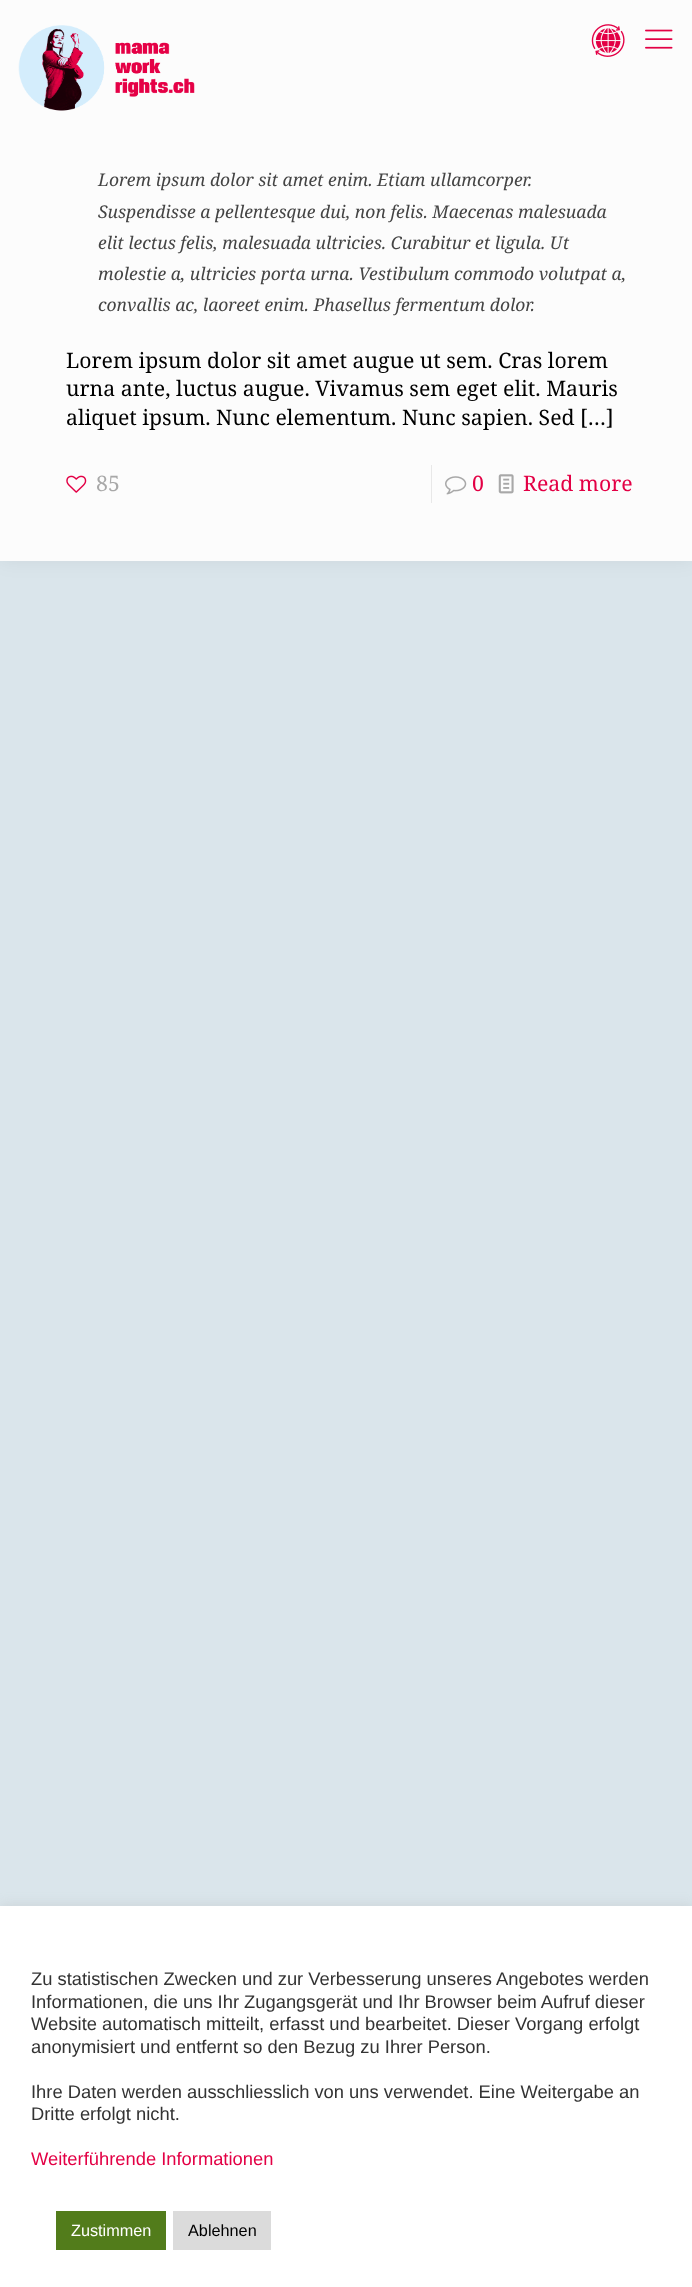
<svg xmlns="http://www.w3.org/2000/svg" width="692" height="2287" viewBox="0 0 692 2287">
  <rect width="100%" height="100%" fill="rgb(218,229,235)"/>
  <rect x="0" y="0" width="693" height="561" fill="rgba(0,0,0,0.06)" filter="blur(9.5px)"/>
  <rect x="0" y="0" width="692" height="561" fill="rgb(252,252,252)"/>
  <image x="18" y="25" width="177" height="86" href="pic1.png"/>
  <image x="591" y="24" width="34" height="33" href="pic2.png"/>
  <image x="645" y="29" width="28" height="20" href="pic3.png"/>
  <g font-family="Noto Serif" font-size="17.5" font-style="italic" fill="rgb(68,68,68)">
    <text>
      <tspan x="98" y="186">Lorem ipsum dolor sit amet enim. Etiam ullamcorper.</tspan>
      <tspan x="98" y="218">Suspendisse a pellentesque dui, non felis. Maecenas malesuada</tspan>
      <tspan x="98" y="249">elit lectus felis, malesuada ultricies. Curabitur et ligula. Ut</tspan>
      <tspan x="98" y="280">molestie a, ultricies porta urna. Vestibulum commodo volutpat a,</tspan>
      <tspan x="98" y="311">convallis ac, laoreet enim. Phasellus fermentum dolor.</tspan>
    </text>
  </g>
  <g font-family="Noto Serif" font-size="21.25" fill="rgb(0,0,0)">
    <text>
      <tspan x="66" y="368">Lorem ipsum dolor sit amet augue ut sem. Cras lorem</tspan>
      <tspan x="66" y="396">urna ante, luctus augue. Vivamus sem eget elit. Mauris</tspan>
      <tspan x="66" y="425">aliquet ipsum. Nunc elementum. Nunc sapien. Sed […]</tspan>
    </text>
  </g>
  <image x="66" y="475" width="21" height="18" href="pic4.png"/>
  <text x="96" y="491" font-family="Noto Serif" font-size="21.25" fill="rgb(168,168,168)">85</text>
  <rect x="431" y="465" width="1" height="38" fill="rgb(232,232,232)"/>
  <image x="445" y="476" width="22" height="19" href="pic5.png"/>
  <text x="472" y="491" font-family="Noto Serif" font-size="21.25" fill="rgb(227,0,69)">0</text>
  <image x="498" y="474" width="16" height="20" href="pic6.png"/>
  <text x="523" y="491" font-family="Noto Serif" font-size="21.25" fill="rgb(227,0,69)">Read more</text>
  <rect x="0" y="1905" width="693" height="381" fill="rgba(172,171,171,0.3)" filter="blur(6px)"/>
  <rect x="0" y="1906" width="692" height="381" fill="rgb(255,255,255)"/>
  <g font-family="Liberation Sans" font-size="18.35" fill="rgb(51,51,51)">
    <text>
      <tspan x="31" y="1985">Zu statistischen Zwecken und zur Verbesserung unseres Angebotes werden</tspan>
      <tspan x="31" y="2008">Informationen, die uns Ihr Zugangsgerät und Ihr Browser beim Aufruf dieser</tspan>
      <tspan x="31" y="2030">Website automatisch mitteilt, erfasst und bearbeitet. Dieser Vorgang erfolgt</tspan>
      <tspan x="31" y="2053">anonymisiert und entfernt so den Bezug zu Ihrer Person.</tspan>
    </text>
    <text>
      <tspan x="31" y="2098">Ihre Daten werden ausschliesslich von uns verwendet. Eine Weitergabe an</tspan>
      <tspan x="31" y="2120">Dritte erfolgt nicht.</tspan>
    </text>
  </g>
  <text x="31" y="2165" font-family="Liberation Sans" font-size="18.35" fill="rgb(227,0,69)">Weiterführende Informationen</text>
  <rect x="56" y="2211" width="110" height="39" fill="rgb(82,124,27)"/>
  <text x="71" y="2236" font-family="Liberation Sans" font-size="16.25" fill="rgb(255,255,255)">Zustimmen</text>
  <rect x="173" y="2211" width="98" height="39" fill="rgb(219,219,219)"/>
  <text x="188" y="2236" font-family="Liberation Sans" font-size="16.25" fill="rgb(0,0,0)">Ablehnen</text>
</svg>
